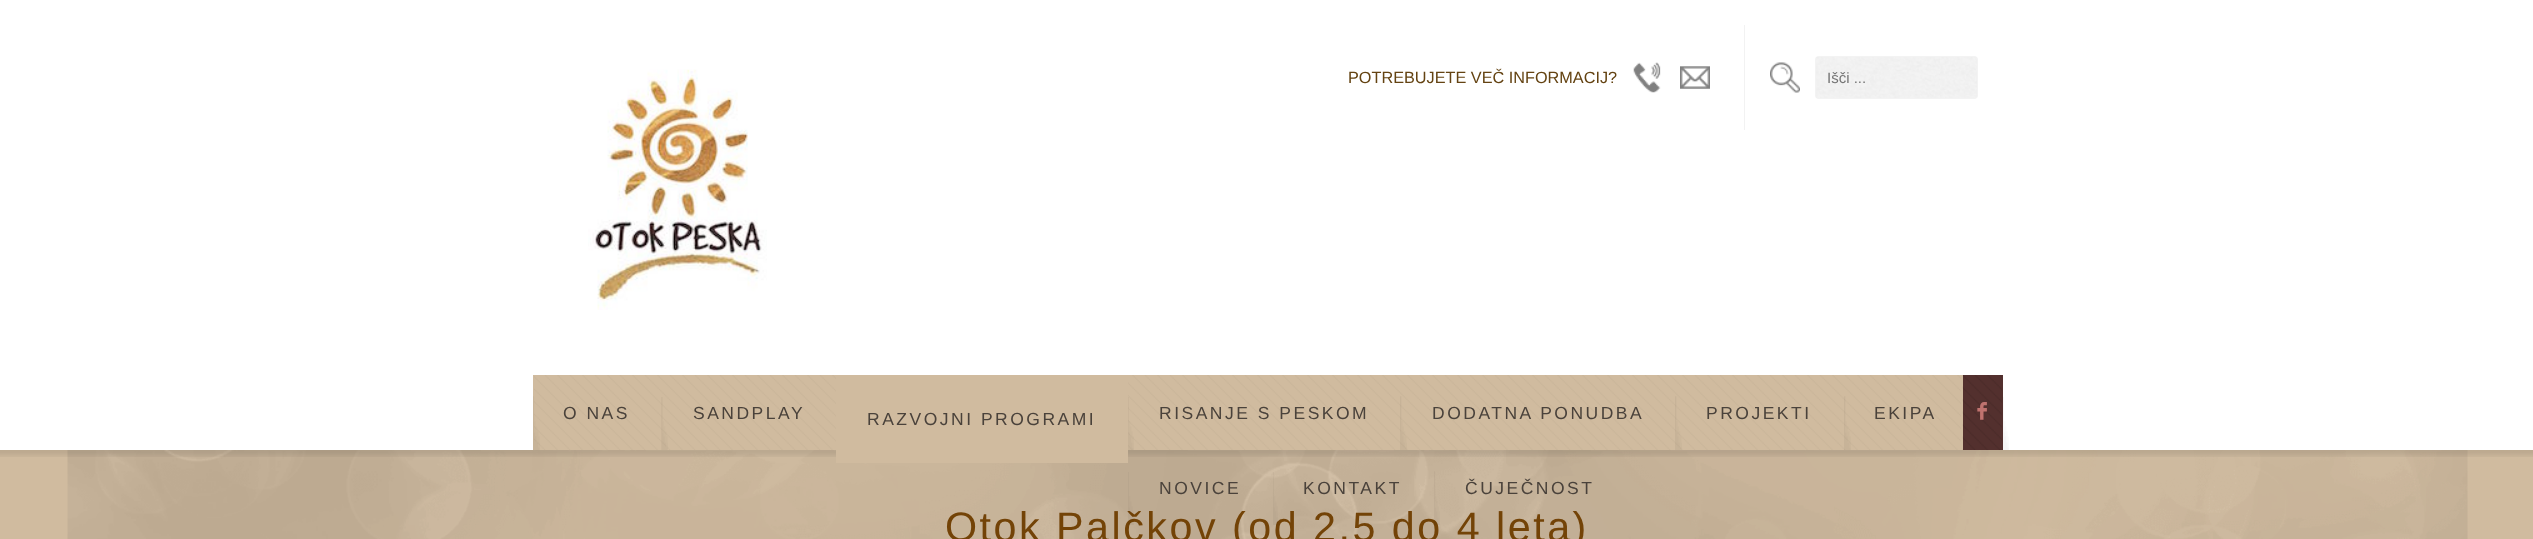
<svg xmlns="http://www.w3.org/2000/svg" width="2533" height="539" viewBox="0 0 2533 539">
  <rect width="100%" height="100%" fill="rgb(255,255,255)"/>
  <image x="588" y="69" width="179" height="241" href="pic1.png"/>
  <rect x="1744" y="25" width="1" height="105" fill="rgb(242,242,242)"/>
  <text x="1348" y="83" font-family="Liberation Sans" font-size="16.25" fill="rgb(100,67,18)">POTREBUJETE VEČ INFORMACIJ?</text>
  <image x="1633" y="62" width="28" height="31" href="pic2.png"/>
  <image x="1680" y="66" width="30" height="23" href="pic3.png"/>
  <image x="1770" y="62" width="30" height="31" href="pic4.png"/>
  <rect x="1815" y="56" width="163" height="43" rx="4" fill="rgb(243,243,243)"/>
  <image x="1816" y="57" width="161" height="41" href="pic5.png"/>
  <text x="1827" y="83" font-family="Liberation Sans" font-size="15" fill="rgb(117,117,117)">Išči ...</text>
  <rect x="533" y="375" width="1430" height="75" fill="rgb(208,187,159)"/>
  <image x="534" y="375" width="1427" height="75" href="pic6.png"/>
  <image x="533" y="396" width="7" height="54" href="pic7.png"/>
  <text x="563" y="419" font-family="Liberation Sans" font-size="17.5" letter-spacing="2.5" fill="rgb(74,66,59)">O NAS</text>
  <image x="661" y="397" width="7" height="53" href="pic8.png"/>
  <text x="693" y="419" font-family="Liberation Sans" font-size="17.5" letter-spacing="2.5" fill="rgb(74,66,59)">SANDPLAY</text>
  <rect x="0" y="450" width="2533" height="89" fill="rgb(208,187,159)"/>
  <image x="67" y="450" width="2401" height="89" href="pic18.png"/>
  <image x="0" y="450" width="2533" height="7" href="pic17.png"/>
  <rect x="836" y="375" width="292" height="88" fill="rgb(208,187,159)"/>
  <text x="867" y="425" font-family="Liberation Sans" font-size="17.5" letter-spacing="2.5" fill="rgb(74,66,59)">RAZVOJNI PROGRAMI</text>
  <image x="1128" y="397" width="6" height="53" href="pic9.png"/>
  <text x="1159" y="419" font-family="Liberation Sans" font-size="17.5" letter-spacing="2.5" fill="rgb(74,66,59)">RISANJE S PESKOM</text>
  <image x="1400" y="396" width="7" height="54" href="pic10.png"/>
  <text x="1432" y="419" font-family="Liberation Sans" font-size="17.5" letter-spacing="2.5" fill="rgb(74,66,59)">DODATNA PONUDBA</text>
  <image x="1675" y="396" width="7" height="54" href="pic10.png"/>
  <text x="1706" y="419" font-family="Liberation Sans" font-size="17.5" letter-spacing="2.5" fill="rgb(74,66,59)">PROJEKTI</text>
  <image x="1844" y="396" width="7" height="54" href="pic11.png"/>
  <text x="1874" y="419" font-family="Liberation Sans" font-size="17.5" letter-spacing="2.5" fill="rgb(74,66,59)">EKIPA</text>
  <image x="2003" y="397" width="6" height="53" href="pic12.png"/>
  <text x="945" y="541" font-family="Liberation Sans" font-size="41.25" letter-spacing="2.5" fill="rgb(115,67,7)">Otok Palčkov (od 2,5 do 4 leta)</text>
  <image x="1128" y="472" width="6" height="53" href="pic13.png"/>
  <text x="1159" y="494" font-family="Liberation Sans" font-size="17.5" letter-spacing="2.5" fill="rgb(74,66,59)">NOVICE</text>
  <image x="1273" y="472" width="5" height="53" href="pic14.png"/>
  <text x="1303" y="494" font-family="Liberation Sans" font-size="17.5" letter-spacing="2.5" fill="rgb(74,66,59)">KONTAKT</text>
  <image x="1434" y="471" width="6" height="54" href="pic15.png"/>
  <text x="1465" y="494" font-family="Liberation Sans" font-size="17.5" letter-spacing="2.5" fill="rgb(74,66,59)">ČUJEČNOST</text>
  <rect x="1963" y="375" width="40" height="75" fill="rgb(83,48,46)"/>
  <image x="1962" y="375" width="40" height="75" href="pic16.png"/>
  <text x="1976" y="421" font-family="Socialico" font-size="29" fill="rgb(192,115,111)">F</text>
</svg>
